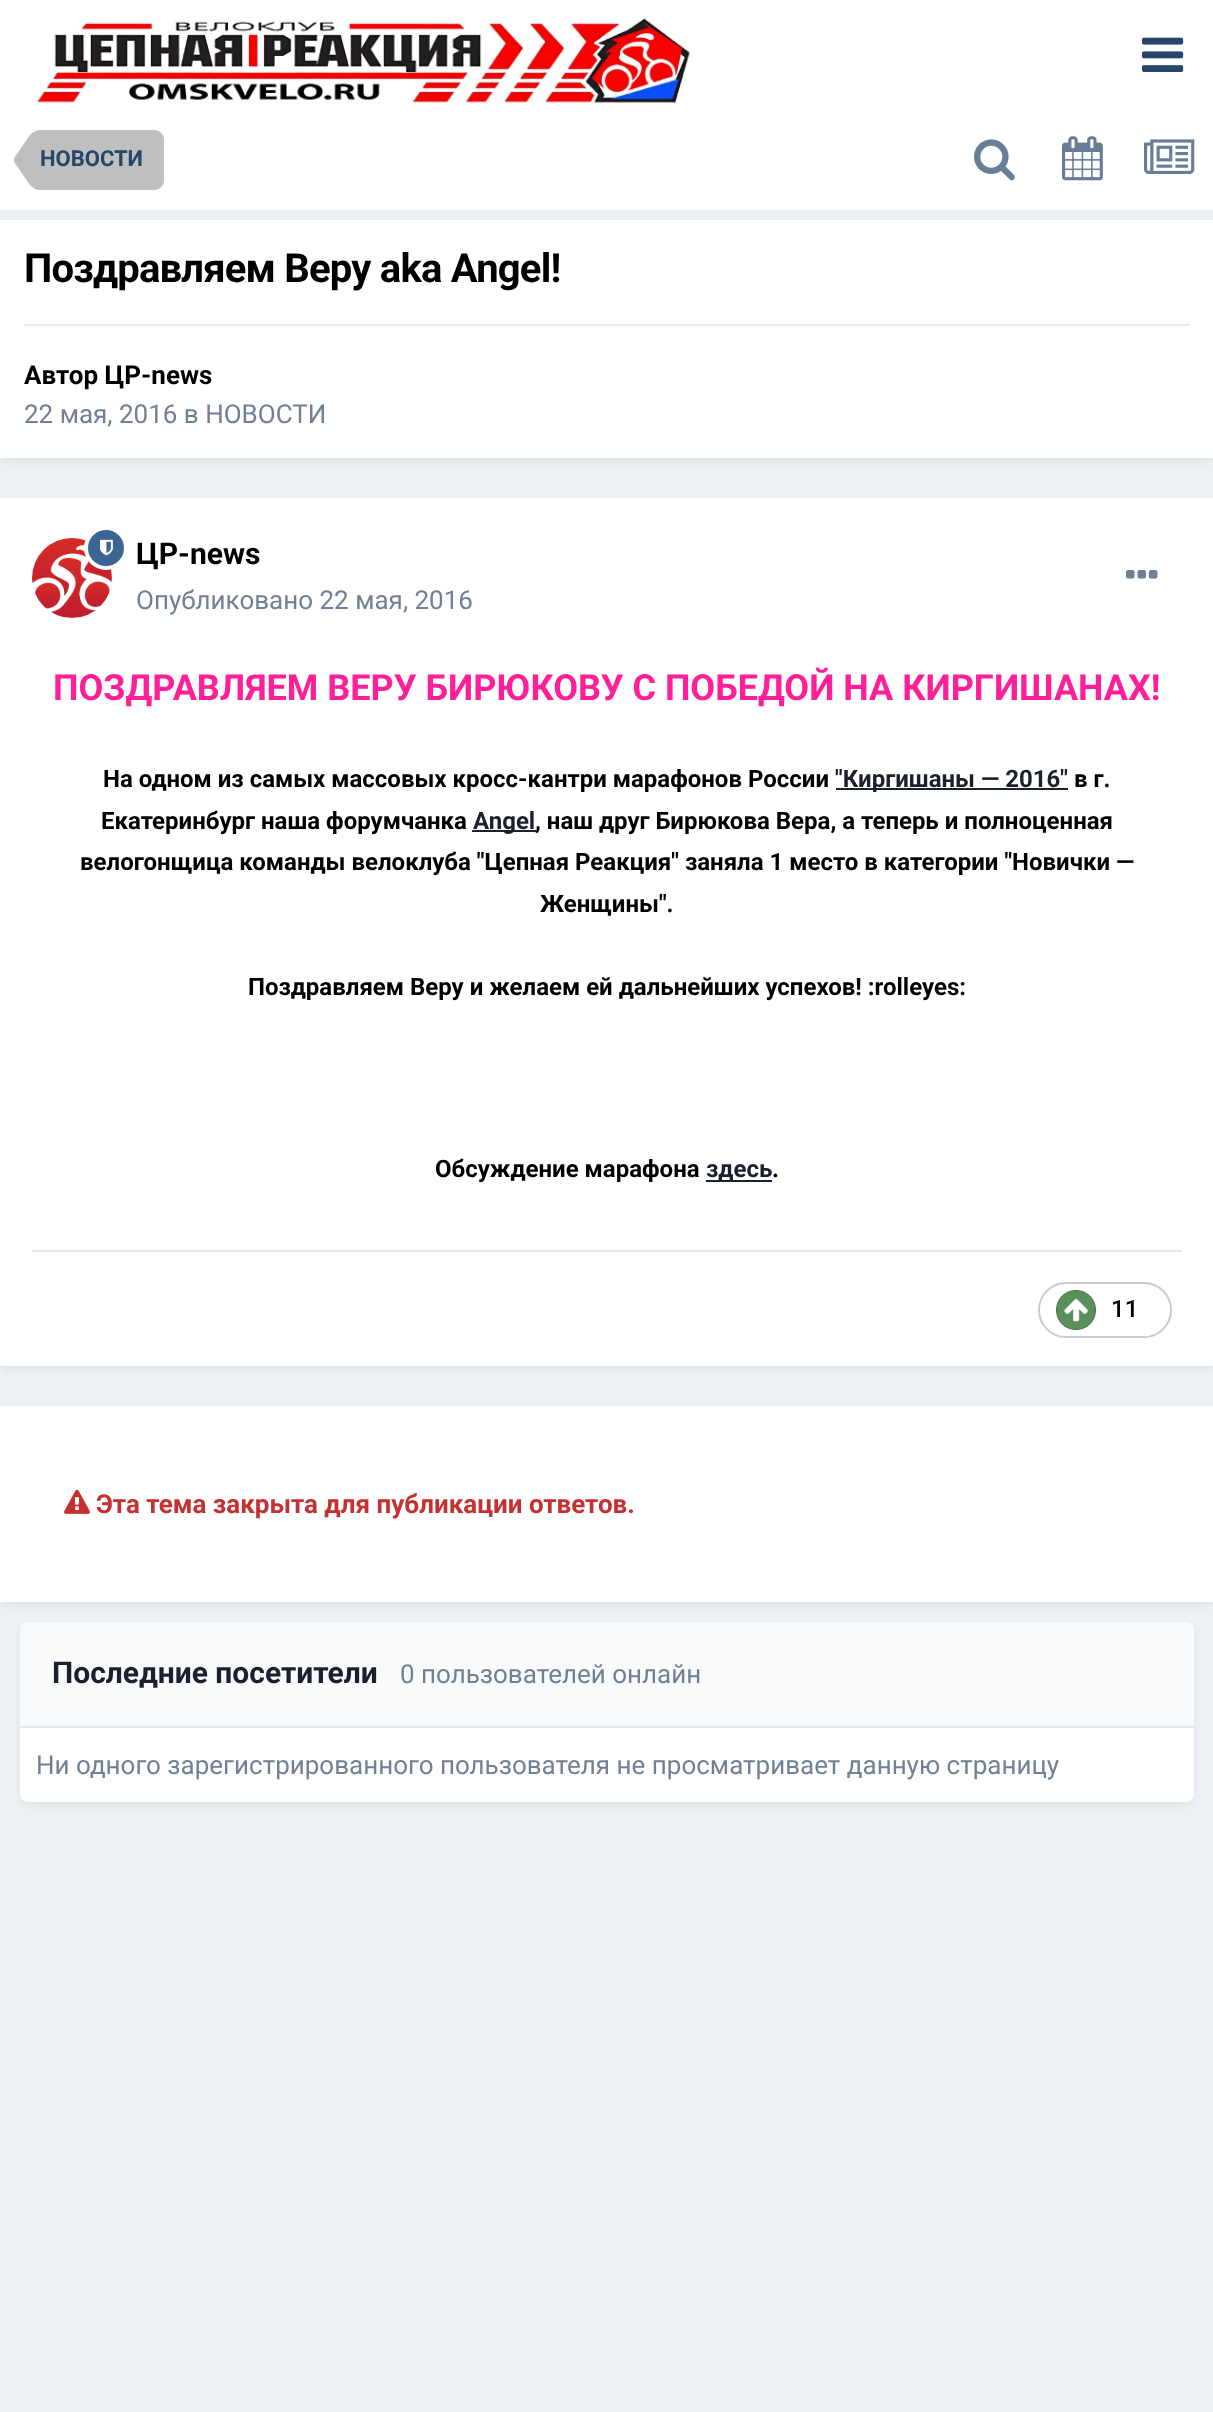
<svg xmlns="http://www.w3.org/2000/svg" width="1213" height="2412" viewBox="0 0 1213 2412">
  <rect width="100%" height="100%" fill="rgb(237,240,244)"/>
  <rect x="0" y="0" width="1213" height="210" fill="rgb(255,255,255)"/>
  <image x="37" y="18" width="653" height="89" href="pic1.png"/>
  <image x="1142" y="37" width="42" height="35" href="pic2.png"/>
  <path d="M40 130H154C159.5 130 164 134.5 164 140V180C164 185.5 159.5 190 154 190H40Z" fill="rgb(191,191,191)"/>
  <path d="M40 160V190C36.5 190 33 188 30 185L15 163.5C14.5 162.5 14 161.5 14 160ZM40 160H14C14 158.5 14.5 157.5 15 156.5L30 135C33 132 36.5 130 40 130Z" fill="rgb(191,191,191)"/>
  <text x="40" y="166" font-family="Roboto" font-size="22" font-weight="bold" fill="rgb(38,70,106)">НОВОСТИ</text>
  <image x="974" y="139" width="41" height="42" href="pic3.png"/>
  <image x="1062" y="136" width="41" height="45" href="pic4.png"/>
  <image x="1144" y="139" width="51" height="35" href="pic5.png"/>
  <rect x="2" y="226" width="1210" height="234" fill="rgba(45,55,72,0.1)" filter="blur(4px)"/>
  <rect x="0" y="220" width="1213" height="238" fill="rgb(255,255,255)"/>
  <text x="24" y="282" font-family="Roboto" font-size="40" font-weight="bold" letter-spacing="-0.8" fill="rgb(0,0,0)">Поздравляем Веру aka Angel!</text>
  <rect x="24" y="324" width="1166" height="2" fill="rgb(235,235,235)"/>
  <text x="24" y="384" font-family="Roboto" font-size="26" font-weight="bold" fill="rgb(0,0,0)">Автор ЦР-news</text>
  <text x="24" y="423" font-family="Roboto" font-size="26" fill="rgb(113,128,150)">22 мая, 2016 в НОВОСТИ</text>
  <rect x="2" y="504" width="1210" height="864" fill="rgba(45,55,72,0.1)" filter="blur(4px)"/>
  <rect x="0" y="498" width="1213" height="868" fill="rgb(255,255,255)"/>
  <image x="32" y="538" width="80" height="80" href="pic7.png"/>
  <circle cx="106" cy="548" r="20" fill="rgb(61,101,148)" stroke="rgb(255,255,255)" stroke-width="4"/>
  <image x="100" y="539" width="13" height="17" href="pic6.png"/>
  <text x="136" y="564" font-family="Roboto" font-size="30" font-weight="bold" fill="rgb(0,0,0)">ЦР-news</text>
  <text x="136" y="609" font-family="Roboto" font-size="26" fill="rgb(113,128,150)">Опубликовано 22 мая, 2016</text>
  <image x="1126" y="570" width="32" height="9" href="pic8.png"/>
  <text x="53" y="700" font-family="Roboto" font-size="36" font-weight="bold" fill="rgb(255,32,153)">ПОЗДРАВЛЯЕМ ВЕРУ БИРЮКОВУ С ПОБЕДОЙ НА КИРГИШАНАХ!</text>
  <text x="103" y="787" font-family="Roboto" font-size="24" font-weight="bold" fill="rgb(0,0,0)">На одном из самых массовых кросс-кантри марафонов России</text>
  <rect x="836" y="788" width="232" height="2" fill="rgb(26,32,44)"/>
  <text x="835" y="787" font-family="Roboto" font-size="24" font-weight="bold" fill="rgb(26,32,44)">"Киргишаны — 2016"</text>
  <g font-family="Roboto" font-size="24" font-weight="bold" fill="rgb(0,0,0)">
    <text x="1074" y="787">в г.</text>
    <text x="101" y="829">Екатеринбург наша форумчанка</text>
  </g>
  <rect x="472" y="830" width="64" height="2" fill="rgb(26,32,44)"/>
  <text x="473" y="829" font-family="Roboto" font-size="24" font-weight="bold" fill="rgb(26,32,44)">Angel</text>
  <g font-family="Roboto" font-size="24" font-weight="bold" fill="rgb(0,0,0)">
    <text x="535" y="829">, наш друг Бирюкова Вера, а теперь и полноценная</text>
    <text x="80" y="870">велогонщица команды велоклуба "Цепная Реакция" заняла 1 место в категории "Новички —</text>
    <text x="540" y="912">Женщины".</text>
    <text x="248" y="995">Поздравляем Веру и желаем ей дальнейших успехов! :rolleyes:</text>
    <text x="435" y="1177">Обсуждение марафона</text>
  </g>
  <rect x="706" y="1180" width="66" height="2" fill="rgb(26,32,44)"/>
  <text x="706" y="1177" font-family="Roboto" font-size="24" font-weight="bold" fill="rgb(26,32,44)">здесь</text>
  <text x="772" y="1177" font-family="Roboto" font-size="24" font-weight="bold" fill="rgb(0,0,0)">.</text>
  <rect x="32" y="1250" width="1150" height="2" fill="rgb(230,230,230)"/>
  <rect x="1039" y="1283" width="132" height="54" rx="27" fill="none" stroke="rgb(198,204,213)" stroke-width="2"/>
  <image x="1056" y="1290" width="40" height="40" href="pic9.png"/>
  <text x="1111" y="1317" font-family="Roboto" font-size="24" font-weight="500" fill="rgb(0,0,0)">11</text>
  <rect x="2" y="1412" width="1210" height="192" fill="rgba(45,55,72,0.1)" filter="blur(4px)"/>
  <rect x="0" y="1406" width="1213" height="196" fill="rgb(255,255,255)"/>
  <image x="64" y="1489" width="26" height="25" href="pic10.png"/>
  <text x="96" y="1513" font-family="Roboto" font-size="26" font-weight="bold" fill="rgb(197,48,48)">Эта тема закрыта для публикации ответов.</text>
  <rect x="22" y="1628" width="1170" height="176" rx="6" fill="rgba(45,55,72,0.1)" filter="blur(4px)"/>
  <rect x="20" y="1622" width="1174" height="180" rx="8" fill="rgb(255,255,255)"/>
  <path d="M28 1622H1186C1190.5 1622 1194 1625.5 1194 1630V1728H20V1630C20 1625.5 23.5 1622 28 1622Z" fill="rgb(249,250,251)"/>
  <rect x="20" y="1726" width="1174" height="2" fill="rgb(229,232,236)"/>
  <text x="52" y="1683" font-family="Roboto" font-size="30" font-weight="bold" fill="rgb(26,32,44)">Последние посетители</text>
  <g font-family="Roboto" font-size="26" fill="rgb(113,128,150)">
    <text x="400" y="1683">0 пользователей онлайн</text>
    <text x="36" y="1774">Ни одного зарегистрированного пользователя не просматривает данную страницу</text>
  </g>
</svg>
